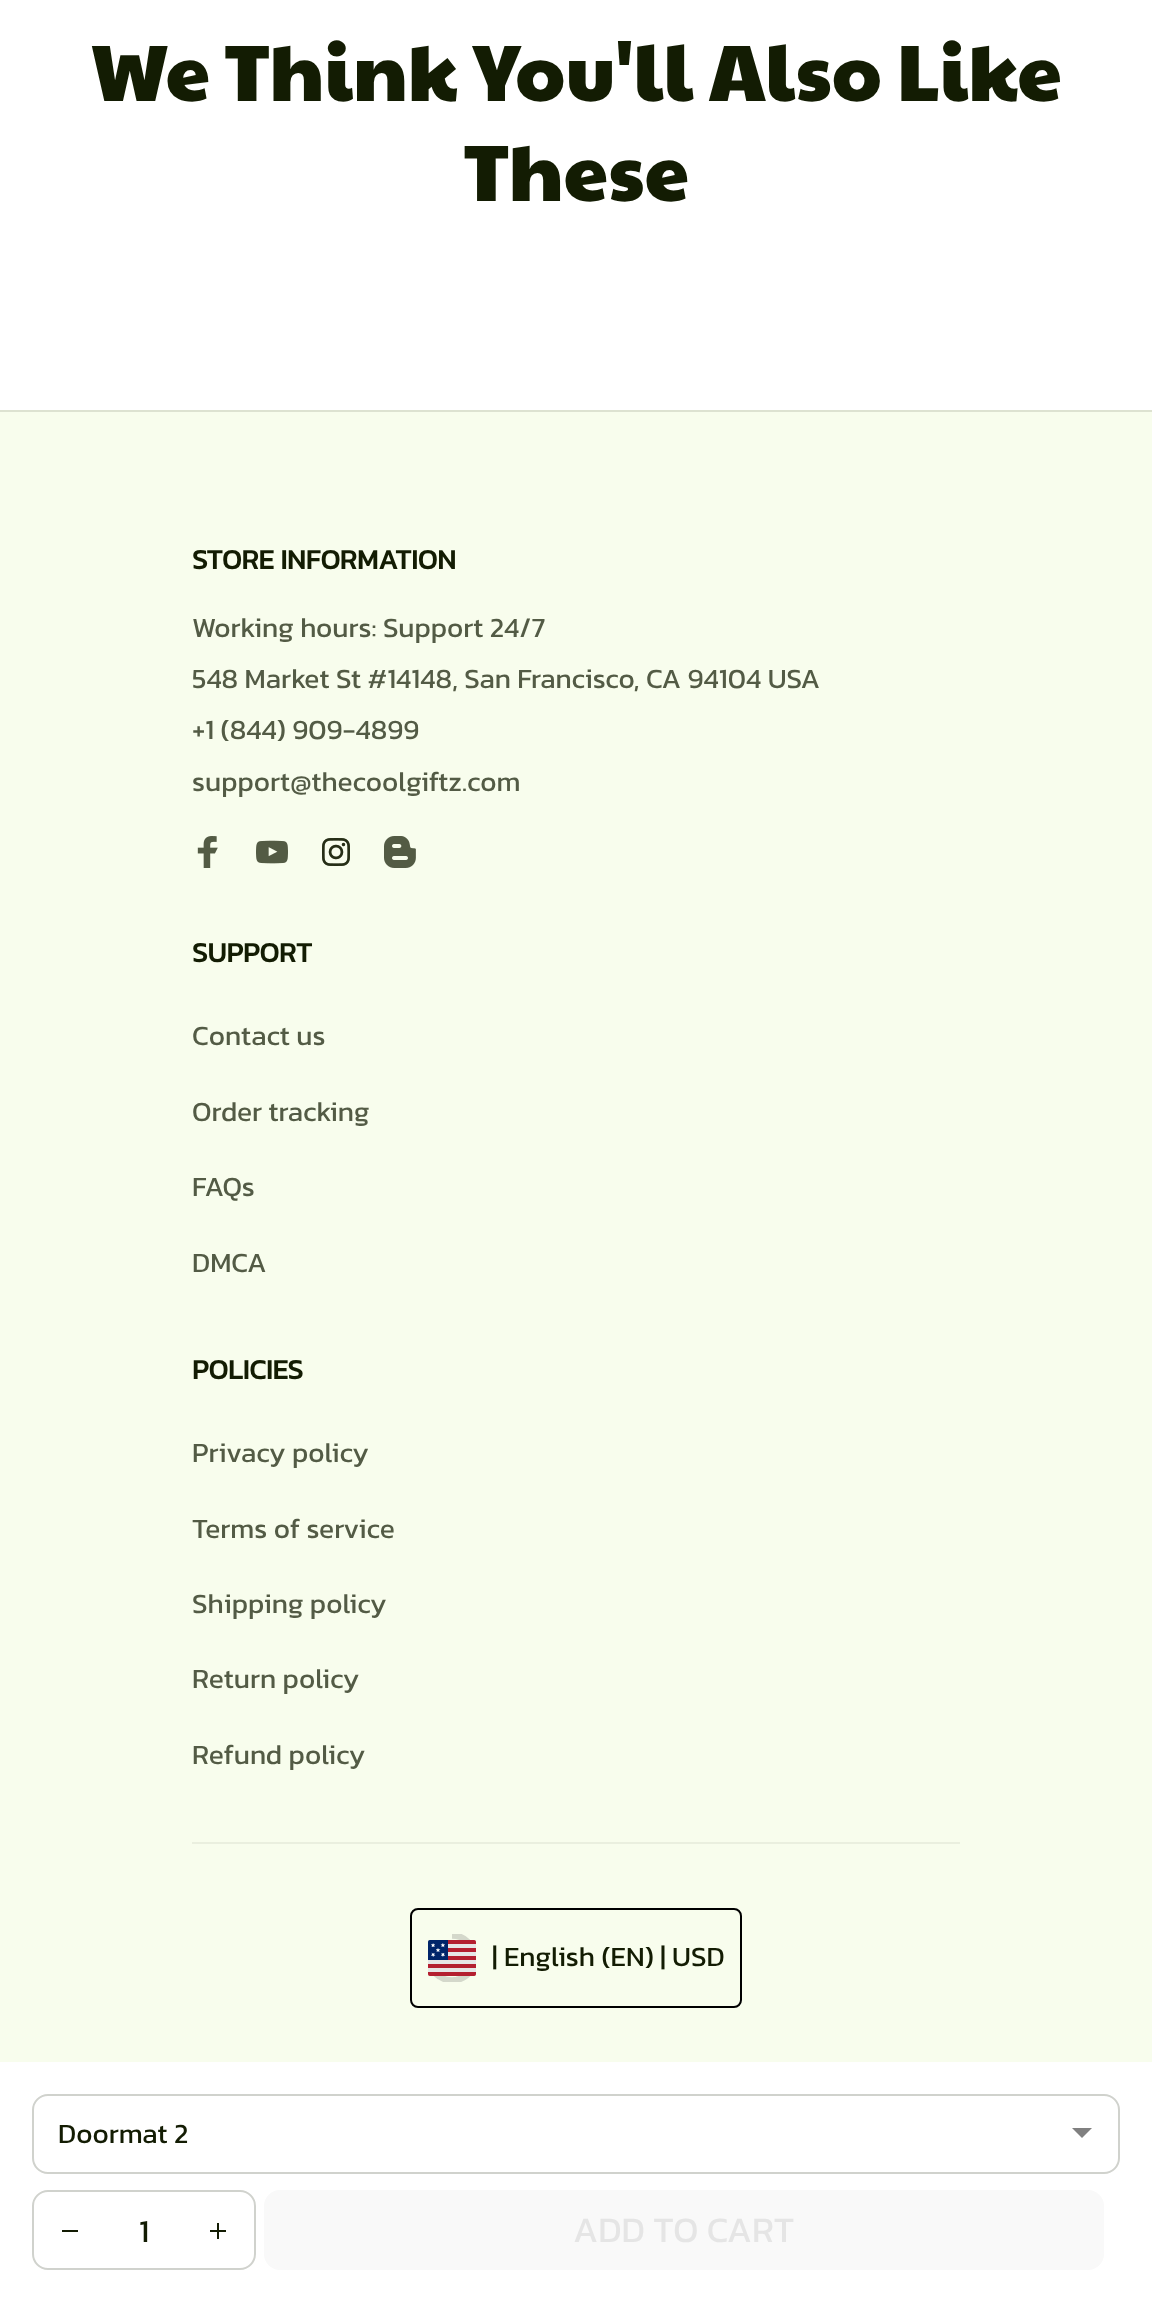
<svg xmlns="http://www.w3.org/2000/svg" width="1152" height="2301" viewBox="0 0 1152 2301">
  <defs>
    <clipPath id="clip1"><rect x="428" y="1934" width="48" height="48"/></clipPath>
  </defs>
  <rect width="100%" height="100%" fill="rgb(255,255,255)"/>
  <g font-family="Paytone One" font-size="80" fill="rgb(19,28,3)">
    <text x="90" y="101">We Think You'll Also Like</text>
    <text x="464" y="201">These</text>
  </g>
  <rect x="0" y="412" width="1152" height="1650" fill="rgb(248,253,237)"/>
  <rect x="0" y="410" width="1152" height="2" fill="rgb(221,226,209)"/>
  <text x="192" y="569" font-family="Kanit" font-size="28" font-weight="bold" fill="rgb(19,28,3)">STORE INFORMATION</text>
  <g font-family="Kanit" font-size="28" fill="rgb(83,91,69)">
    <text>
      <tspan x="192" y="637">Working hours: Support 24/7</tspan>
      <tspan x="192" y="688">548 Market St #14148, San Francisco, CA 94104 USA</tspan>
      <tspan x="192" y="739">+1 (844) 909-4899</tspan>
      <tspan x="192" y="791">support@thecoolgiftz.com</tspan>
    </text>
  </g>
  <image x="197" y="836" width="21" height="32" href="pic1.png"/>
  <image x="256" y="840" width="32" height="24" href="pic2.png"/>
  <image x="322" y="838" width="28" height="28" href="pic3.png"/>
  <image x="384" y="836" width="32" height="32" href="pic4.png"/>
  <text x="192" y="962" font-family="Kanit" font-size="28" font-weight="bold" fill="rgb(19,28,3)">SUPPORT</text>
  <g font-family="Kanit" font-size="28" fill="rgb(83,91,69)">
    <text x="192" y="1045">Contact us</text>
    <text x="192" y="1121">Order tracking</text>
    <text x="192" y="1196">FAQs</text>
    <text x="192" y="1272">DMCA</text>
  </g>
  <text x="192" y="1379" font-family="Kanit" font-size="28" font-weight="bold" fill="rgb(19,28,3)">POLICIES</text>
  <g font-family="Kanit" font-size="28" fill="rgb(83,91,69)">
    <text x="192" y="1462">Privacy policy</text>
    <text x="192" y="1538">Terms of service</text>
    <text x="192" y="1613">Shipping policy</text>
    <text x="192" y="1688">Return policy</text>
    <text x="192" y="1764">Refund policy</text>
  </g>
  <rect x="192" y="1842" width="768" height="2" fill="rgb(234,239,223)"/>
  <rect x="411" y="1909" width="330" height="98" rx="7" fill="none" stroke="rgb(0,0,0)" stroke-width="2"/>
  <g clip-path="url(#clip1)">
    <path d="M452 1935.5C478.5 1935.5 482.5 1974.5 456.5 1980C450.5 1981 444.5 1980 439.5 1976.5C433.5 1972.5 429.5 1965.5 429.5 1958" fill="none" stroke="rgb(212,216,203)" stroke-width="6.4"/>
  </g>
  <image x="428" y="1940" width="48" height="36" href="pic5.png"/>
  <text x="492" y="1966" font-family="Kanit" font-size="28" fill="rgb(19,28,3)">| English (EN) | USD</text>
  <path d="M1072 2128H1092L1082 2138Z" fill="rgb(128,128,128)"/>
  <rect x="33" y="2095" width="1086" height="78" rx="15" fill="none" stroke="rgb(208,210,205)" stroke-width="2"/>
  <text x="58" y="2143" font-family="Kanit" font-size="28" fill="rgb(19,28,3)">Doormat 2</text>
  <rect x="33" y="2191" width="222" height="78" rx="15" fill="none" stroke="rgb(208,210,205)" stroke-width="2"/>
  <rect x="62" y="2230" width="16" height="2" fill="rgb(19,28,3)"/>
  <text x="139" y="2242" font-family="Kanit" font-size="32" fill="rgb(19,28,3)">1</text>
  <rect x="210" y="2230" width="16" height="2" fill="rgb(19,28,3)"/>
  <rect x="217" y="2223" width="2" height="16" fill="rgb(19,28,3)"/>
  <rect x="264" y="2190" width="840" height="80" rx="16" fill="rgb(249,249,249)"/>
  <text x="573" y="2242" font-family="Kanit" font-size="36" fill="rgb(229,229,229)">ADD TO CART</text>
</svg>
